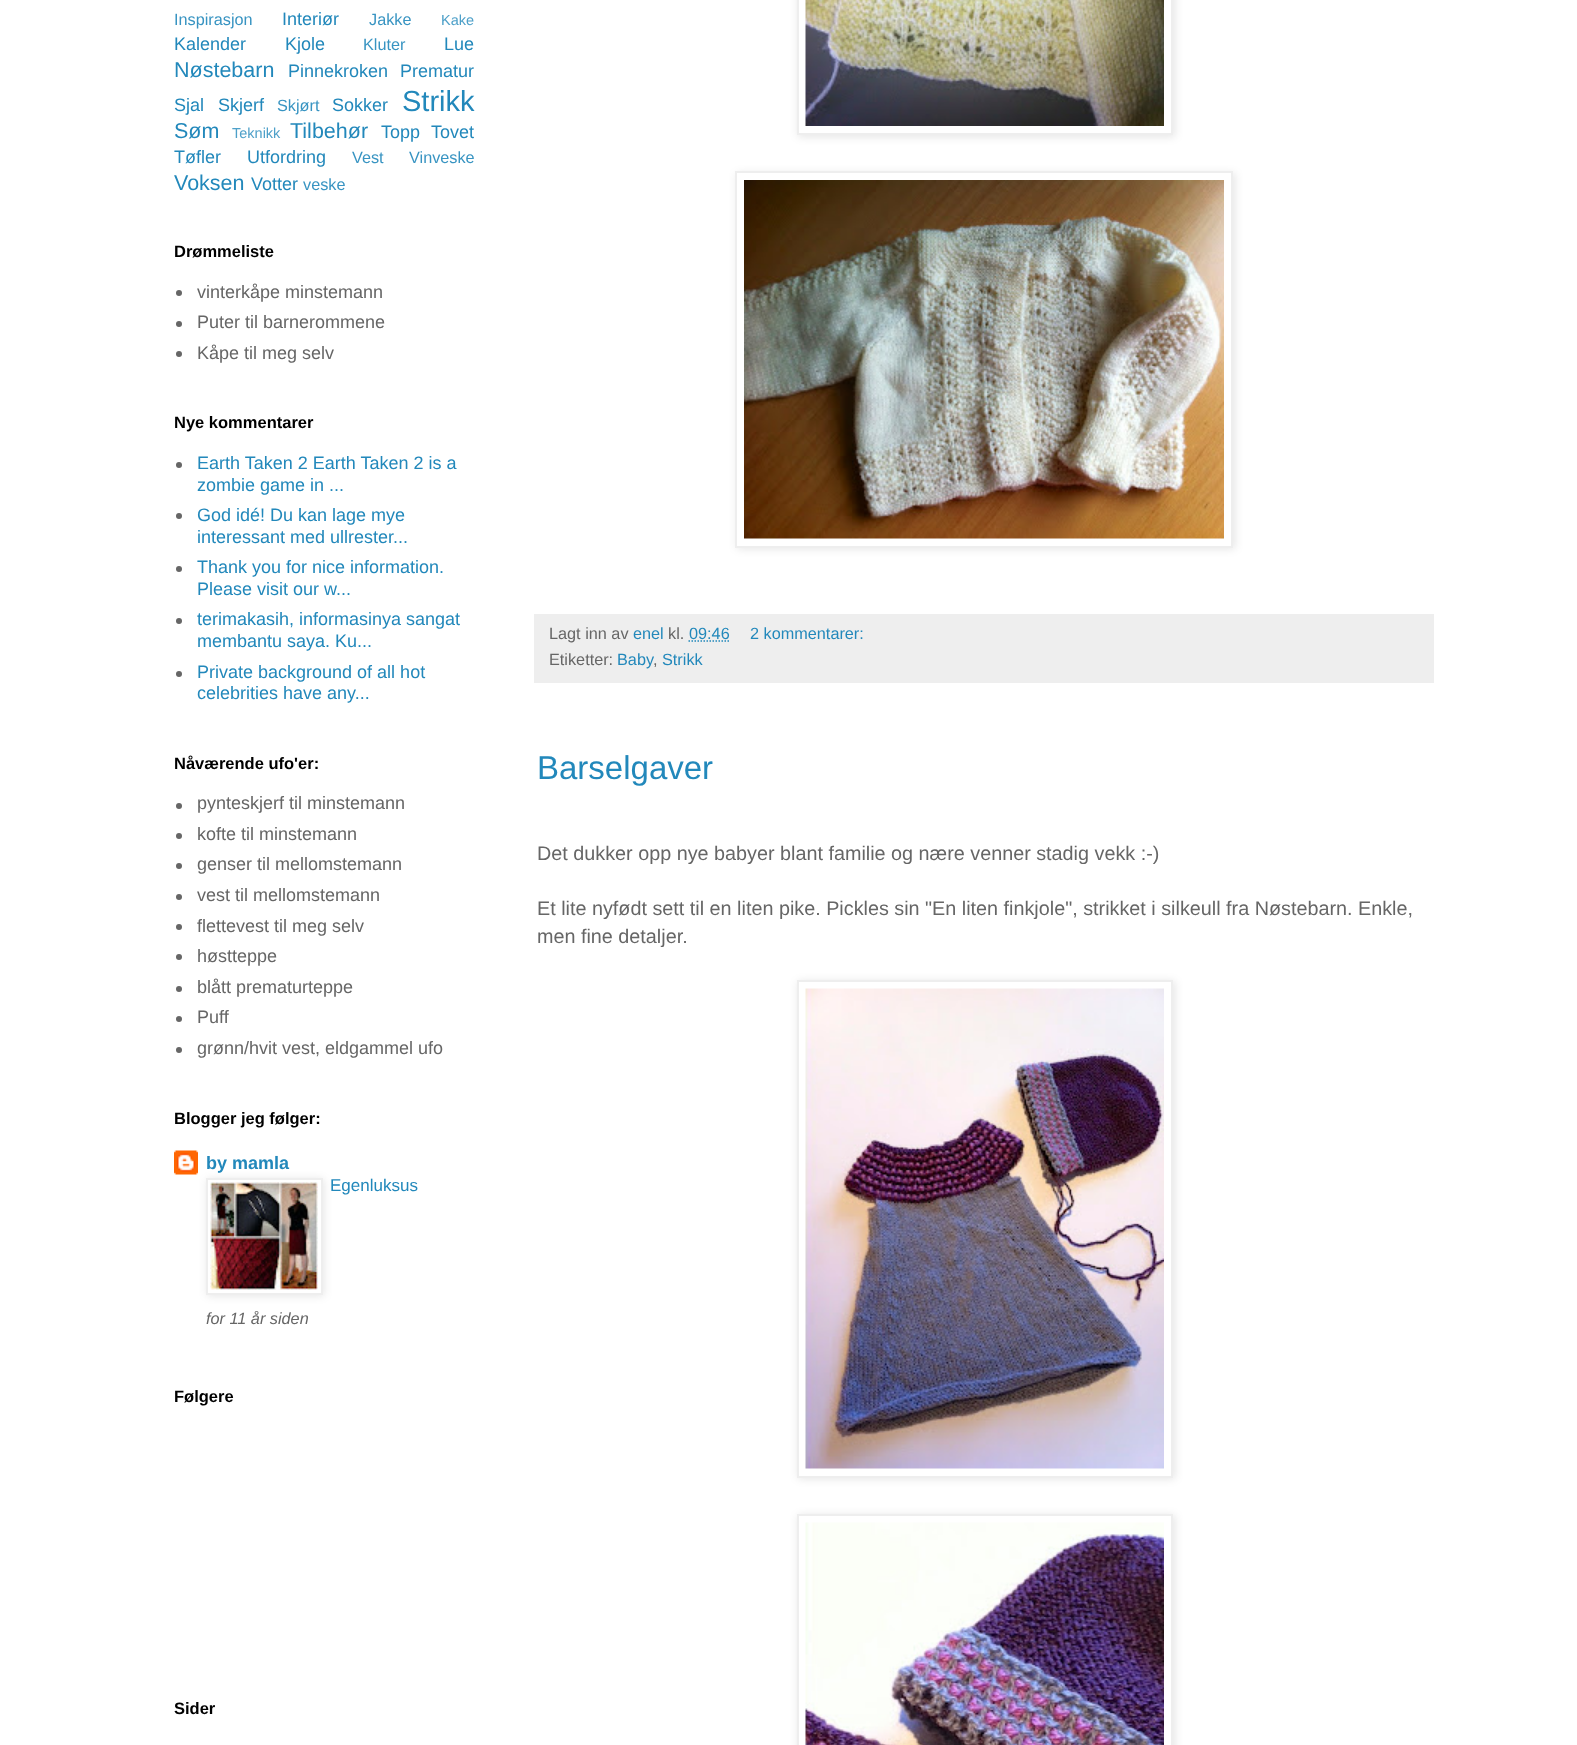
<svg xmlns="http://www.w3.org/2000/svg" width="1577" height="1745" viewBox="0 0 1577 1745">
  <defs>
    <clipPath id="clip1"><path d="M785 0H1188V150H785ZM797-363H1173V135H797Z" clip-rule="evenodd"/></clipPath>
    <clipPath id="clip2"><path d="M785 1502H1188V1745H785ZM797 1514H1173V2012H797Z" clip-rule="evenodd"/></clipPath>
  </defs>
  <rect width="100%" height="100%" fill="rgb(255,255,255)"/>
  <text x="174" y="25" font-family="Liberation Sans" font-size="16.25" fill="rgb(56,148,194)">Inspirasjon</text>
  <text x="282" y="25" font-family="Liberation Sans" font-size="18" fill="rgb(34,136,187)">Interiør</text>
  <text x="369" y="25" font-family="Liberation Sans" font-size="16.25" fill="rgb(56,148,194)">Jakke</text>
  <text x="441" y="25" font-family="Liberation Sans" font-size="14.5" fill="rgb(78,160,201)">Kake</text>
  <g font-family="Liberation Sans" font-size="18" fill="rgb(34,136,187)">
    <text x="174" y="50">Kalender</text>
    <text x="285" y="50">Kjole</text>
  </g>
  <text x="363" y="50" font-family="Liberation Sans" font-size="16.25" fill="rgb(56,148,194)">Kluter</text>
  <text x="444" y="50" font-family="Liberation Sans" font-size="18" fill="rgb(34,136,187)">Lue</text>
  <text x="174" y="77" font-family="Liberation Sans" font-size="21.5" fill="rgb(34,136,187)">Nøstebarn</text>
  <g font-family="Liberation Sans" font-size="18" fill="rgb(34,136,187)">
    <text x="288" y="77">Pinnekroken</text>
    <text x="400" y="77">Prematur</text>
    <text x="174" y="111">Sjal</text>
    <text x="218" y="111">Skjerf</text>
  </g>
  <text x="277" y="111" font-family="Liberation Sans" font-size="16.25" fill="rgb(56,148,194)">Skjørt</text>
  <text x="332" y="111" font-family="Liberation Sans" font-size="18" fill="rgb(34,136,187)">Sokker</text>
  <text x="402" y="111" font-family="Liberation Sans" font-size="29" fill="rgb(34,136,187)">Strikk</text>
  <text x="174" y="138" font-family="Liberation Sans" font-size="21.5" fill="rgb(34,136,187)">Søm</text>
  <text x="232" y="138" font-family="Liberation Sans" font-size="14.5" fill="rgb(78,160,201)">Teknikk</text>
  <text x="290" y="138" font-family="Liberation Sans" font-size="21.5" fill="rgb(34,136,187)">Tilbehør</text>
  <g font-family="Liberation Sans" font-size="18" fill="rgb(34,136,187)">
    <text x="381" y="138">Topp</text>
    <text x="431" y="138">Tovet</text>
    <text x="174" y="163">Tøfler</text>
    <text x="247" y="163">Utfordring</text>
  </g>
  <g font-family="Liberation Sans" font-size="16.25" fill="rgb(56,148,194)">
    <text x="352" y="163">Vest</text>
    <text x="409" y="163">Vinveske</text>
  </g>
  <text x="174" y="190" font-family="Liberation Sans" font-size="21.5" fill="rgb(34,136,187)">Voksen</text>
  <text x="251" y="190" font-family="Liberation Sans" font-size="18" fill="rgb(34,136,187)">Votter</text>
  <text x="303" y="190" font-family="Liberation Sans" font-size="16.25" fill="rgb(56,148,194)">veske</text>
  <text x="174" y="257" font-family="Liberation Sans" font-size="16.5" font-weight="bold" fill="rgb(0,0,0)">Drømmeliste</text>
  <circle cx="179" cy="293" r="3" fill="rgb(102,102,102)"/>
  <text x="197" y="298" font-family="Liberation Sans" font-size="18" fill="rgb(102,102,102)">vinterkåpe minstemann</text>
  <circle cx="179" cy="324" r="3" fill="rgb(102,102,102)"/>
  <text x="197" y="328" font-family="Liberation Sans" font-size="18" fill="rgb(102,102,102)">Puter til barnerommene</text>
  <circle cx="179" cy="354" r="3" fill="rgb(102,102,102)"/>
  <text x="197" y="359" font-family="Liberation Sans" font-size="18" fill="rgb(102,102,102)">Kåpe til meg selv</text>
  <text x="174" y="428" font-family="Liberation Sans" font-size="16.5" font-weight="bold" fill="rgb(0,0,0)">Nye kommentarer</text>
  <circle cx="179" cy="465" r="3" fill="rgb(102,102,102)"/>
  <g font-family="Liberation Sans" font-size="18" fill="rgb(34,136,187)">
    <text>
      <tspan x="197" y="469">Earth Taken 2 Earth Taken 2 is a</tspan>
      <tspan x="197" y="491">zombie game in ...</tspan>
    </text>
  </g>
  <circle cx="179" cy="516" r="3" fill="rgb(102,102,102)"/>
  <g font-family="Liberation Sans" font-size="18" fill="rgb(34,136,187)">
    <text>
      <tspan x="197" y="521">God idé! Du kan lage mye</tspan>
      <tspan x="197" y="543">interessant med ullrester...</tspan>
    </text>
  </g>
  <circle cx="179" cy="569" r="3" fill="rgb(102,102,102)"/>
  <g font-family="Liberation Sans" font-size="18" fill="rgb(34,136,187)">
    <text>
      <tspan x="197" y="573">Thank you for nice information.</tspan>
      <tspan x="197" y="595">Please visit our w...</tspan>
    </text>
  </g>
  <circle cx="179" cy="621" r="3" fill="rgb(102,102,102)"/>
  <g font-family="Liberation Sans" font-size="18" fill="rgb(34,136,187)">
    <text>
      <tspan x="197" y="625">terimakasih, informasinya sangat</tspan>
      <tspan x="197" y="647">membantu saya. Ku...</tspan>
    </text>
  </g>
  <circle cx="179" cy="674" r="3" fill="rgb(102,102,102)"/>
  <g font-family="Liberation Sans" font-size="18" fill="rgb(34,136,187)">
    <text>
      <tspan x="197" y="678">Private background of all hot</tspan>
      <tspan x="197" y="699">celebrities have any...</tspan>
    </text>
  </g>
  <text x="174" y="769" font-family="Liberation Sans" font-size="16.5" font-weight="bold" fill="rgb(0,0,0)">Nåværende ufo'er:</text>
  <circle cx="179" cy="806" r="3" fill="rgb(102,102,102)"/>
  <text x="197" y="809" font-family="Liberation Sans" font-size="18" fill="rgb(102,102,102)">pynteskjerf til minstemann</text>
  <circle cx="179" cy="836" r="3" fill="rgb(102,102,102)"/>
  <text x="197" y="840" font-family="Liberation Sans" font-size="18" fill="rgb(102,102,102)">kofte til minstemann</text>
  <circle cx="179" cy="866" r="3" fill="rgb(102,102,102)"/>
  <text x="197" y="870" font-family="Liberation Sans" font-size="18" fill="rgb(102,102,102)">genser til mellomstemann</text>
  <circle cx="179" cy="897" r="3" fill="rgb(102,102,102)"/>
  <text x="197" y="901" font-family="Liberation Sans" font-size="18" fill="rgb(102,102,102)">vest til mellomstemann</text>
  <circle cx="179" cy="927" r="3" fill="rgb(102,102,102)"/>
  <text x="197" y="932" font-family="Liberation Sans" font-size="18" fill="rgb(102,102,102)">flettevest til meg selv</text>
  <circle cx="179" cy="957" r="3" fill="rgb(102,102,102)"/>
  <text x="197" y="962" font-family="Liberation Sans" font-size="18" fill="rgb(102,102,102)">høstteppe</text>
  <circle cx="179" cy="989" r="3" fill="rgb(102,102,102)"/>
  <text x="197" y="993" font-family="Liberation Sans" font-size="18" fill="rgb(102,102,102)">blått prematurteppe</text>
  <circle cx="179" cy="1019" r="3" fill="rgb(102,102,102)"/>
  <text x="197" y="1023" font-family="Liberation Sans" font-size="18" fill="rgb(102,102,102)">Puff</text>
  <circle cx="179" cy="1050" r="3" fill="rgb(102,102,102)"/>
  <text x="197" y="1054" font-family="Liberation Sans" font-size="18" fill="rgb(102,102,102)">grønn/hvit vest, eldgammel ufo</text>
  <text x="174" y="1124" font-family="Liberation Sans" font-size="16.5" font-weight="bold" fill="rgb(0,0,0)">Blogger jeg følger:</text>
  <image x="174" y="1150" width="24" height="25" href="pic1.png"/>
  <text x="206" y="1169" font-family="Liberation Sans" font-size="18" font-weight="bold" fill="rgb(34,136,187)">by mamla</text>
  <rect x="207" y="1179" width="117" height="117" fill="rgba(0,0,0,0.1)" filter="blur(4px)"/>
  <rect x="207" y="1179" width="115" height="115" fill="rgb(255,255,255)" stroke="rgb(238,238,238)" stroke-width="2"/>
  <image x="210" y="1182" width="108" height="108" href="pic2.png"/>
  <text x="330" y="1191" font-family="Liberation Sans" font-size="17" fill="rgb(34,136,187)">Egenluksus</text>
  <text x="206" y="1324" font-family="Liberation Sans" font-size="16.25" font-style="italic" fill="rgb(102,102,102)">for 11 år siden</text>
  <g font-family="Liberation Sans" font-size="16.5" font-weight="bold" fill="rgb(0,0,0)">
    <text x="174" y="1402">Følgere</text>
    <text x="174" y="1714">Sider</text>
  </g>
  <g clip-path="url(#clip1)">
    <rect x="798" y="-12" width="377" height="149" fill="rgba(0,0,0,0.1)" filter="blur(4px)"/>
  </g>
  <rect x="798" y="-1" width="374" height="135" fill="none" stroke="rgb(238,238,238)" stroke-width="2"/>
  <image x="805" y="0" width="359" height="126" href="pic3.png"/>
  <rect x="737" y="173" width="498" height="376" fill="rgba(0,0,0,0.1)" filter="blur(4px)"/>
  <rect x="736" y="172" width="496" height="375" fill="rgb(255,255,255)" stroke="rgb(238,238,238)" stroke-width="2"/>
  <image x="744" y="180" width="480" height="359" href="pic4.png"/>
  <rect x="534" y="614" width="900" height="69" fill="rgb(238,238,238)"/>
  <text x="549" y="639" font-family="Liberation Sans" font-size="16.25" fill="rgb(102,102,102)">Lagt inn av</text>
  <text x="633" y="639" font-family="Liberation Sans" font-size="16.25" fill="rgb(34,136,187)">enel</text>
  <text x="668" y="639" font-family="Liberation Sans" font-size="16.25" fill="rgb(102,102,102)">kl.</text>
  <text x="689" y="639" font-family="Liberation Sans" font-size="16.25" fill="rgb(34,136,187)">09:46</text>
  <path d="M688.5 641H729" fill="none" stroke="rgb(34,136,187)" stroke-width="1.5" stroke-dasharray="1.5 1.5"/>
  <text x="750" y="639" font-family="Liberation Sans" font-size="16.25" fill="rgb(34,136,187)">2 kommentarer:</text>
  <text x="549" y="665" font-family="Liberation Sans" font-size="16.25" fill="rgb(102,102,102)">Etiketter:</text>
  <text x="617" y="665" font-family="Liberation Sans" font-size="16.25" fill="rgb(34,136,187)">Baby</text>
  <text x="653" y="665" font-family="Liberation Sans" font-size="16.25" fill="rgb(102,102,102)">,</text>
  <text x="662" y="665" font-family="Liberation Sans" font-size="16.25" fill="rgb(34,136,187)">Strikk</text>
  <text x="537" y="779" font-family="Liberation Sans" font-size="33" fill="rgb(34,136,187)">Barselgaver</text>
  <g font-family="Liberation Sans" font-size="19.8" fill="rgb(102,102,102)">
    <text x="537" y="860">Det dukker opp nye babyer blant familie og nære venner stadig vekk :-)</text>
    <text>
      <tspan x="537" y="915">Et lite nyfødt sett til en liten pike. Pickles sin "En liten finkjole", strikket i silkeull fra Nøstebarn. Enkle,</tspan>
      <tspan x="537" y="943">men fine detaljer.</tspan>
    </text>
  </g>
  <rect x="798" y="981" width="377" height="498" fill="rgba(0,0,0,0.1)" filter="blur(4px)"/>
  <rect x="798" y="981" width="374" height="496" fill="rgb(255,255,255)" stroke="rgb(238,238,238)" stroke-width="2"/>
  <image x="805" y="988" width="359" height="481" href="pic5.png"/>
  <g clip-path="url(#clip2)">
    <rect x="798" y="1515" width="377" height="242" fill="rgba(0,0,0,0.1)" filter="blur(4px)"/>
  </g>
  <rect x="798" y="1515" width="374" height="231" fill="none" stroke="rgb(238,238,238)" stroke-width="2"/>
  <image x="805" y="1522" width="359" height="223" href="pic6.png"/>
</svg>
